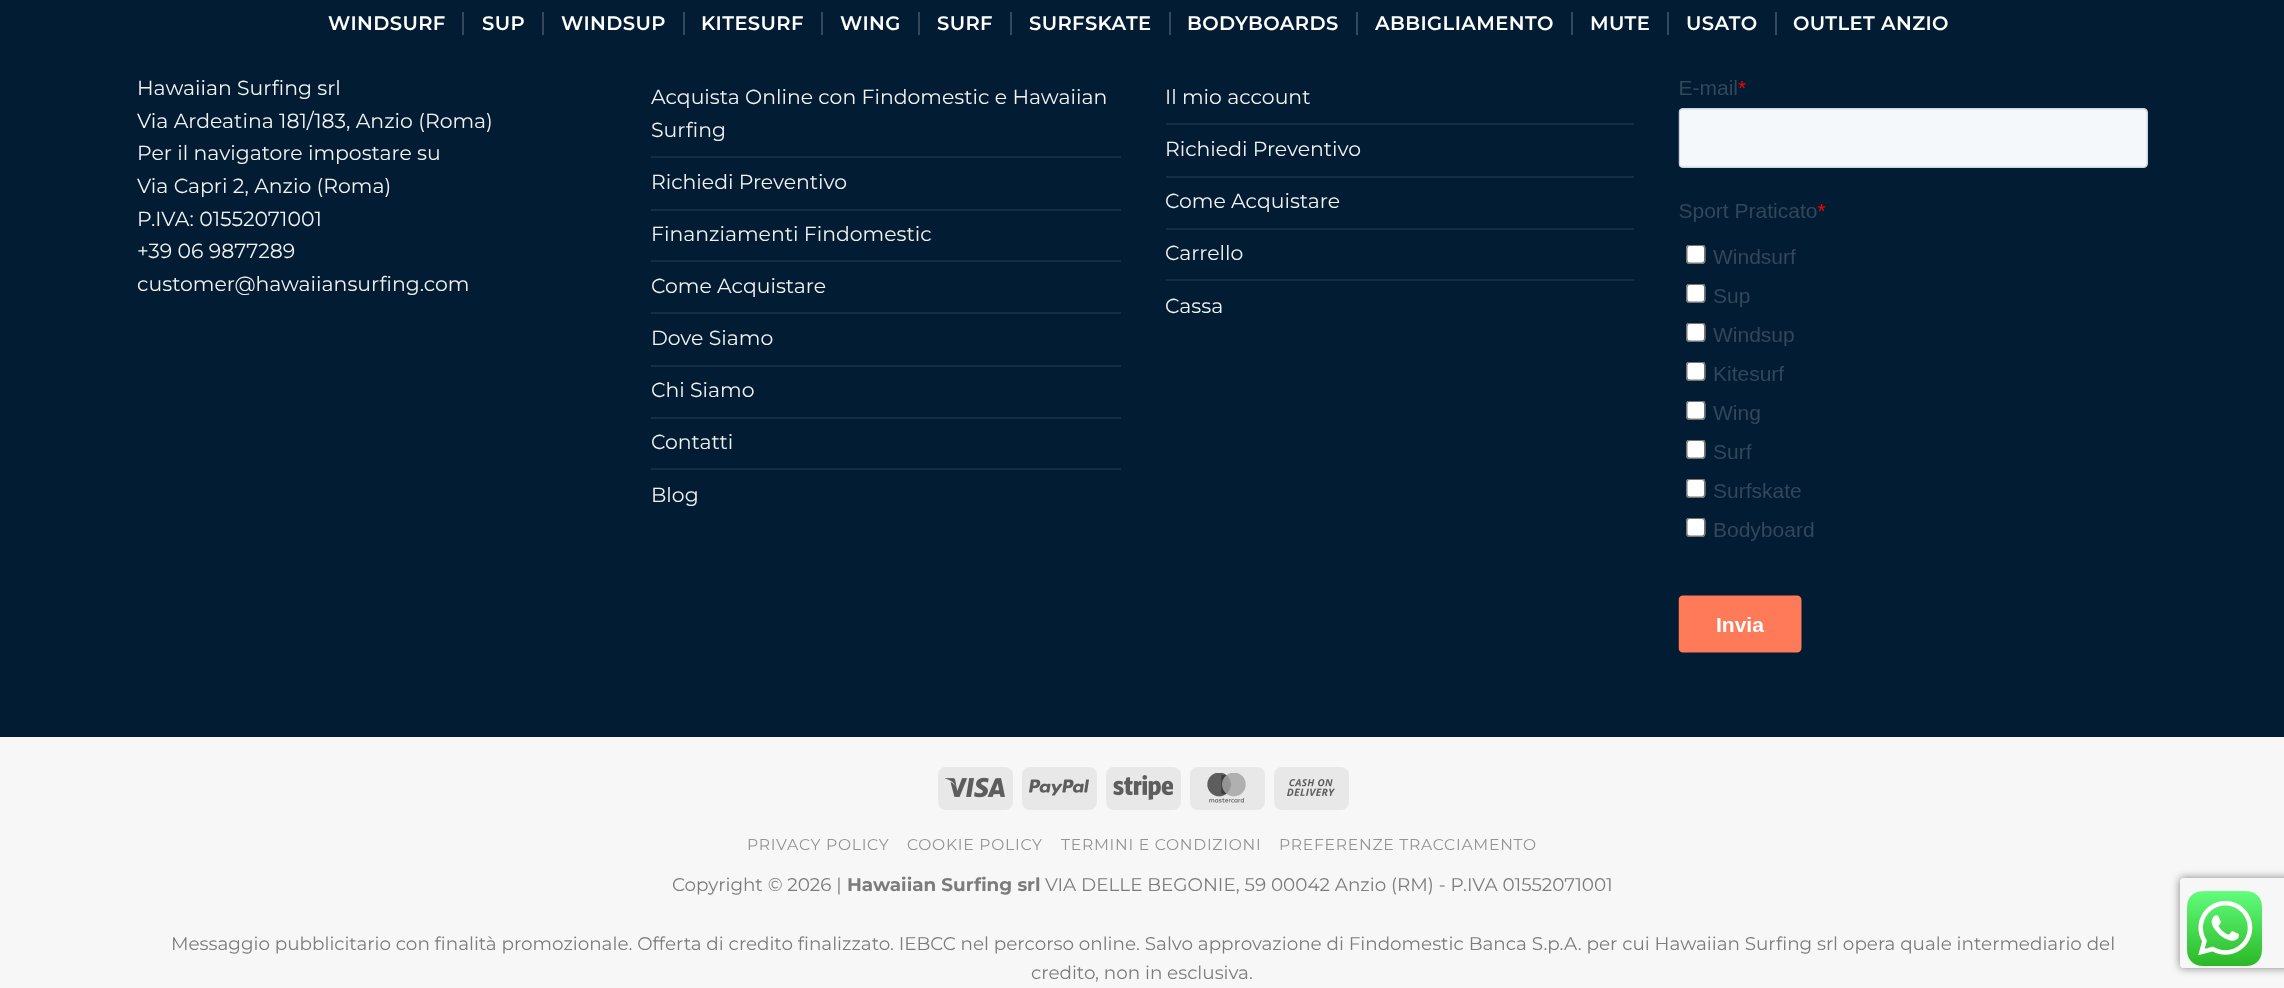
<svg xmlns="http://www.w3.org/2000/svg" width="2284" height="988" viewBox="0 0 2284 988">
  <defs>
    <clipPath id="clip1"><path d="M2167 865H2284V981H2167ZM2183 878H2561C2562.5 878 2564 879.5 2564 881V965C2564 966.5 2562.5 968 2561 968H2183C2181.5 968 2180 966.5 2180 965V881C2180 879.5 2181.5 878 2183 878Z" clip-rule="evenodd"/></clipPath>
  </defs>
  <rect width="100%" height="100%" fill="rgb(2,28,51)"/>
  <text x="328" y="30" font-family="Montserrat" font-size="19.5" font-weight="600" letter-spacing="0.4" fill="rgb(255,255,255)">WINDSURF</text>
  <rect x="462" y="12" width="2" height="23" fill="rgb(53,73,92)"/>
  <text x="482" y="30" font-family="Montserrat" font-size="19.5" font-weight="600" letter-spacing="0.4" fill="rgb(255,255,255)">SUP</text>
  <rect x="542" y="12" width="2" height="23" fill="rgb(53,73,92)"/>
  <text x="561" y="30" font-family="Montserrat" font-size="19.5" font-weight="600" letter-spacing="0.4" fill="rgb(255,255,255)">WINDSUP</text>
  <rect x="683" y="12" width="2" height="23" fill="rgb(53,73,92)"/>
  <text x="701" y="30" font-family="Montserrat" font-size="19.5" font-weight="600" letter-spacing="0.4" fill="rgb(255,255,255)">KITESURF</text>
  <rect x="821" y="12" width="2" height="23" fill="rgb(53,73,92)"/>
  <text x="840" y="30" font-family="Montserrat" font-size="19.5" font-weight="600" letter-spacing="0.4" fill="rgb(255,255,255)">WING</text>
  <rect x="918" y="12" width="2" height="23" fill="rgb(53,73,92)"/>
  <text x="937" y="30" font-family="Montserrat" font-size="19.5" font-weight="600" letter-spacing="0.4" fill="rgb(255,255,255)">SURF</text>
  <rect x="1010" y="12" width="2" height="23" fill="rgb(53,73,92)"/>
  <text x="1029" y="30" font-family="Montserrat" font-size="19.5" font-weight="600" letter-spacing="0.4" fill="rgb(255,255,255)">SURFSKATE</text>
  <rect x="1169" y="12" width="2" height="23" fill="rgb(53,73,92)"/>
  <text x="1187" y="30" font-family="Montserrat" font-size="19.5" font-weight="600" letter-spacing="0.4" fill="rgb(255,255,255)">BODYBOARDS</text>
  <rect x="1356" y="12" width="2" height="23" fill="rgb(53,73,92)"/>
  <text x="1375" y="30" font-family="Montserrat" font-size="19.5" font-weight="600" letter-spacing="0.4" fill="rgb(255,255,255)">ABBIGLIAMENTO</text>
  <rect x="1571" y="12" width="2" height="23" fill="rgb(53,73,92)"/>
  <text x="1590" y="30" font-family="Montserrat" font-size="19.5" font-weight="600" letter-spacing="0.4" fill="rgb(255,255,255)">MUTE</text>
  <rect x="1667" y="12" width="2" height="23" fill="rgb(53,73,92)"/>
  <text x="1686" y="30" font-family="Montserrat" font-size="19.5" font-weight="600" letter-spacing="0.4" fill="rgb(255,255,255)">USATO</text>
  <rect x="1775" y="12" width="2" height="23" fill="rgb(53,73,92)"/>
  <text x="1793" y="30" font-family="Montserrat" font-size="19.5" font-weight="600" letter-spacing="0.4" fill="rgb(255,255,255)">OUTLET ANZIO</text>
  <g font-family="Montserrat" font-size="20.4" fill="rgb(241,241,241)">
    <text>
      <tspan x="137" y="95">Hawaiian Surfing srl</tspan>
      <tspan x="137" y="128">Via Ardeatina 181/183, Anzio (Roma)</tspan>
      <tspan x="137" y="160">Per il navigatore impostare su</tspan>
      <tspan x="137" y="193">Via Capri 2, Anzio (Roma)</tspan>
      <tspan x="137" y="226">P.IVA: 01552071001</tspan>
      <tspan x="137" y="258">+39 06 9877289</tspan>
      <tspan x="137" y="291">customer@hawaiiansurfing.com</tspan>
    </text>
    <text>
      <tspan x="651" y="104">Acquista Online con Findomestic e Hawaiian</tspan>
      <tspan x="651" y="137">Surfing</tspan>
    </text>
  </g>
  <rect x="651" y="156" width="470" height="2" fill="rgb(22,46,67)"/>
  <text x="651" y="189" font-family="Montserrat" font-size="20.4" fill="rgb(241,241,241)">Richiedi Preventivo</text>
  <rect x="651" y="209" width="470" height="2" fill="rgb(22,46,67)"/>
  <text x="651" y="241" font-family="Montserrat" font-size="20.4" fill="rgb(241,241,241)">Finanziamenti Findomestic</text>
  <rect x="651" y="260" width="470" height="2" fill="rgb(22,46,67)"/>
  <text x="651" y="293" font-family="Montserrat" font-size="20.4" fill="rgb(241,241,241)">Come Acquistare</text>
  <rect x="651" y="312" width="470" height="2" fill="rgb(22,46,67)"/>
  <text x="651" y="345" font-family="Montserrat" font-size="20.4" fill="rgb(241,241,241)">Dove Siamo</text>
  <rect x="651" y="365" width="470" height="2" fill="rgb(22,46,67)"/>
  <text x="651" y="397" font-family="Montserrat" font-size="20.4" fill="rgb(241,241,241)">Chi Siamo</text>
  <rect x="651" y="417" width="470" height="2" fill="rgb(22,46,67)"/>
  <text x="651" y="449" font-family="Montserrat" font-size="20.4" fill="rgb(241,241,241)">Contatti</text>
  <rect x="651" y="468" width="470" height="2" fill="rgb(22,46,67)"/>
  <g font-family="Montserrat" font-size="20.4" fill="rgb(241,241,241)">
    <text x="651" y="502">Blog</text>
    <text x="1165" y="104">Il mio account</text>
  </g>
  <rect x="1166" y="123" width="468" height="2" fill="rgb(22,46,67)"/>
  <text x="1165" y="156" font-family="Montserrat" font-size="20.4" fill="rgb(241,241,241)">Richiedi Preventivo</text>
  <rect x="1166" y="176" width="468" height="2" fill="rgb(22,46,67)"/>
  <text x="1165" y="208" font-family="Montserrat" font-size="20.4" fill="rgb(241,241,241)">Come Acquistare</text>
  <rect x="1166" y="228" width="468" height="2" fill="rgb(22,46,67)"/>
  <text x="1165" y="260" font-family="Montserrat" font-size="20.4" fill="rgb(241,241,241)">Carrello</text>
  <rect x="1166" y="279" width="468" height="2" fill="rgb(22,46,67)"/>
  <text x="1165" y="313" font-family="Montserrat" font-size="20.4" fill="rgb(241,241,241)">Cassa</text>
  <image x="1678" y="80" width="470" height="573" href="pic1.png"/>
  <rect x="0" y="737" width="2284" height="251" fill="rgb(247,247,247)"/>
  <rect x="938" y="767" width="75" height="43" rx="8" fill="rgb(232,232,232)"/>
  <image x="945" y="777" width="60" height="21" href="pic2.png"/>
  <rect x="1022" y="767" width="75" height="43" rx="8" fill="rgb(232,232,232)"/>
  <image x="1029" y="779" width="60" height="17" href="pic3.png"/>
  <rect x="1106" y="767" width="75" height="43" rx="8" fill="rgb(232,232,232)"/>
  <image x="1113" y="775" width="60" height="25" href="pic4.png"/>
  <rect x="1190" y="767" width="75" height="43" rx="8" fill="rgb(232,232,232)"/>
  <image x="1207" y="773" width="39" height="30" href="pic5.png"/>
  <rect x="1274" y="767" width="75" height="43" rx="8" fill="rgb(232,232,232)"/>
  <image x="1287" y="779" width="48" height="17" href="pic6.png"/>
  <g font-family="Montserrat" font-size="15.6" letter-spacing="0.75" fill="rgb(148,148,148)">
    <text x="747" y="850">PRIVACY POLICY</text>
    <text x="907" y="850">COOKIE POLICY</text>
    <text x="1061" y="850">TERMINI E CONDIZIONI</text>
    <text x="1279" y="850">PREFERENZE TRACCIAMENTO</text>
  </g>
  <text x="672" y="891" font-family="Montserrat" font-size="18.36" fill="rgb(124,124,124)">Copyright © 2026 |</text>
  <text x="847" y="891" font-family="Montserrat" font-size="18.36" font-weight="bold" fill="rgb(124,124,124)">Hawaiian Surfing srl</text>
  <g font-family="Montserrat" font-size="18.36" fill="rgb(124,124,124)">
    <text x="1045" y="891">VIA DELLE BEGONIE, 59 00042 Anzio (RM) - P.IVA 01552071001</text>
    <text x="171" y="950">Messaggio pubblicitario con finalità promozionale. Offerta di credito finalizzato. IEBCC nel percorso online. Salvo approvazione di Findomestic Banca S.p.A. per cui Hawaiian Surfing srl opera quale intermediario del</text>
    <text x="1031" y="979">credito, non in esclusiva.</text>
  </g>
  <g clip-path="url(#clip1)">
    <rect x="2180" y="878" width="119" height="90" rx="3" fill="rgb(128,128,128)" filter="blur(4px)"/>
  </g>
  <image x="2187" y="891" width="75" height="75" href="pic7.png"/>
</svg>
